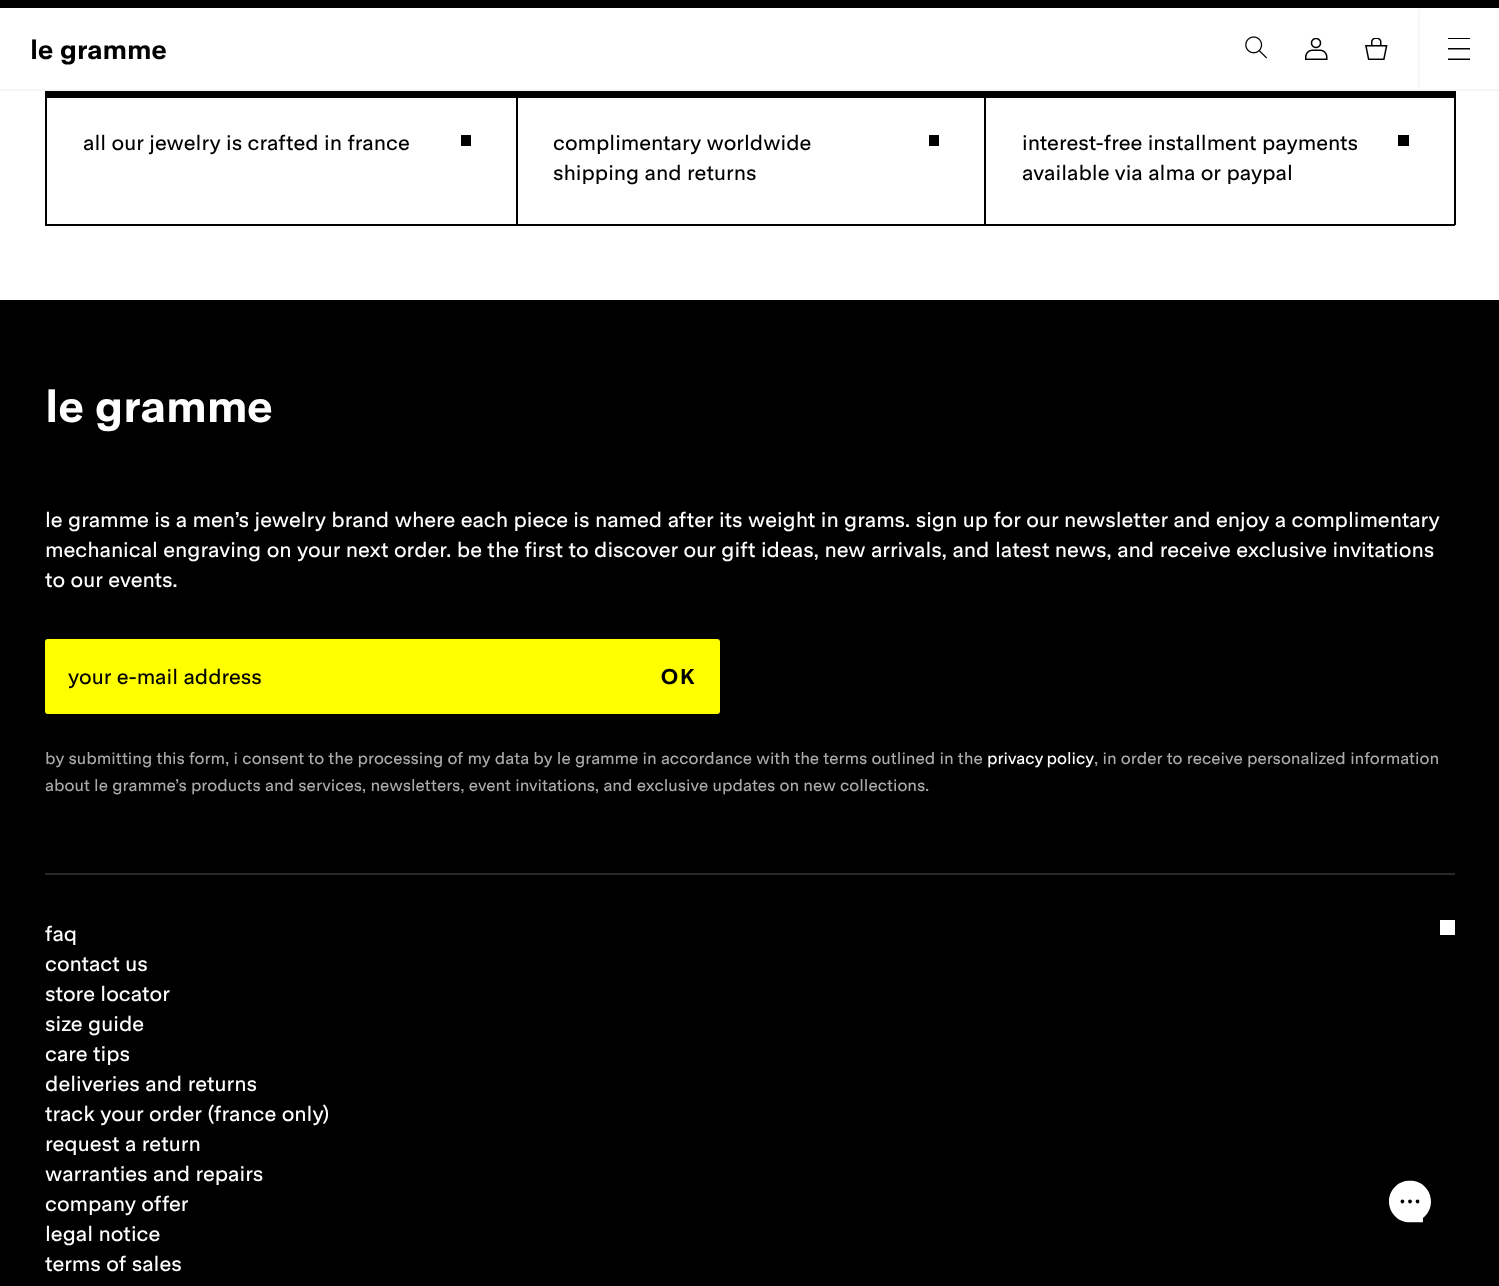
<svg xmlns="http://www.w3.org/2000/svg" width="1499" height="1286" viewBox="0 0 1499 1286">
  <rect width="100%" height="100%" fill="rgb(0,0,0)"/>
  <rect x="0" y="8" width="1499" height="81" fill="rgb(255,255,255)"/>
  <text x="30" y="59" font-family="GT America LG" font-size="27" font-weight="bold" fill="rgb(0,0,0)">le gramme</text>
  <image x="1245" y="36" width="22" height="23" href="pic1.png"/>
  <image x="1305" y="38" width="23" height="22" href="pic2.png"/>
  <image x="1365" y="38" width="23" height="22" href="pic3.png"/>
  <rect x="0" y="91" width="1499" height="209" fill="rgb(255,255,255)"/>
  <rect x="45" y="91" width="1410" height="7" fill="rgb(0,0,0)"/>
  <rect x="1454" y="90" width="2" height="135" fill="rgb(0,0,0)"/>
  <rect x="45" y="224" width="1410" height="2" fill="rgb(0,0,0)"/>
  <rect x="45" y="90" width="2" height="135" fill="rgb(0,0,0)"/>
  <rect x="0" y="89" width="1499" height="2" fill="rgb(246,246,246)"/>
  <rect x="1418" y="9" width="2" height="81" fill="rgb(246,246,246)"/>
  <image x="1448" y="38" width="22" height="22" href="pic4.png"/>
  <text x="83" y="150" font-family="GT America LG" font-size="21" fill="rgb(0,0,0)">all our jewelry is crafted in france</text>
  <rect x="461" y="135" width="10" height="11" fill="rgb(0,0,0)"/>
  <rect x="516" y="98" width="2" height="126" fill="rgb(0,0,0)"/>
  <g font-family="GT America LG" font-size="21" fill="rgb(0,0,0)">
    <text>
      <tspan x="553" y="150">complimentary worldwide</tspan>
      <tspan x="553" y="180">shipping and returns</tspan>
    </text>
  </g>
  <rect x="929" y="135" width="10" height="11" fill="rgb(0,0,0)"/>
  <rect x="984" y="98" width="2" height="126" fill="rgb(0,0,0)"/>
  <g font-family="GT America LG" font-size="21" fill="rgb(0,0,0)">
    <text>
      <tspan x="1022" y="150">interest-free installment payments</tspan>
      <tspan x="1022" y="180">available via alma or paypal</tspan>
    </text>
  </g>
  <rect x="1398" y="135" width="11" height="11" fill="rgb(0,0,0)"/>
  <text x="45" y="422" font-family="GT America LG" font-size="45" font-weight="bold" fill="rgb(255,255,255)">le gramme</text>
  <rect x="45" y="873" width="1410" height="2" fill="rgb(40,40,40)"/>
  <g font-family="GT America LG" font-size="21" fill="rgb(255,255,255)">
    <text>
      <tspan x="45" y="527">le gramme is a men’s jewelry brand where each piece is named after its weight in grams. sign up for our newsletter and enjoy a complimentary</tspan>
      <tspan x="45" y="557">mechanical engraving on your next order. be the first to discover our gift ideas, new arrivals, and latest news, and receive exclusive invitations</tspan>
      <tspan x="45" y="587">to our events.</tspan>
    </text>
  </g>
  <rect x="45" y="639" width="675" height="75" rx="3" fill="rgb(255,255,0)"/>
  <text x="68" y="684" font-family="GT America LG" font-size="21" fill="rgb(0,0,0)">your e-mail address</text>
  <text x="661" y="684" font-family="GT America LG" font-size="21" font-weight="bold" letter-spacing="2" fill="rgb(0,0,0)">OK</text>
  <text x="45" y="764" font-family="GT America LG" font-size="16.5" fill="rgb(170,170,170)">by submitting this form, i consent to the processing of my data by le gramme in accordance with the terms outlined in the</text>
  <text x="987" y="764" word-spacing="-1" font-family="GT America LG" font-size="16.5" fill="rgb(255,255,255)">privacy policy</text>
  <g font-family="GT America LG" font-size="16.5" fill="rgb(170,170,170)">
    <text x="1094" y="764">, in order to receive personalized information</text>
    <text x="45" y="791">about le gramme’s products and services, newsletters, event invitations, and exclusive updates on new collections.</text>
  </g>
  <text x="45" y="941" font-family="GT America LG" font-size="21" fill="rgb(255,255,255)">faq</text>
  <rect x="1440" y="920" width="15" height="15" fill="rgb(255,255,255)"/>
  <g font-family="GT America LG" font-size="21" fill="rgb(255,255,255)">
    <text>
      <tspan x="45" y="971">contact us</tspan>
      <tspan x="45" y="1001">store locator</tspan>
      <tspan x="45" y="1031">size guide</tspan>
      <tspan x="45" y="1061">care tips</tspan>
      <tspan x="45" y="1091">deliveries and returns</tspan>
      <tspan x="45" y="1121">track your order (france only)</tspan>
      <tspan x="45" y="1151">request a return</tspan>
      <tspan x="45" y="1181">warranties and repairs</tspan>
      <tspan x="45" y="1211">company offer</tspan>
      <tspan x="45" y="1241">legal notice</tspan>
      <tspan x="45" y="1271">terms of sales</tspan>
    </text>
  </g>
  <image x="1389" y="1180" width="42" height="43" href="pic5.png"/>
</svg>
